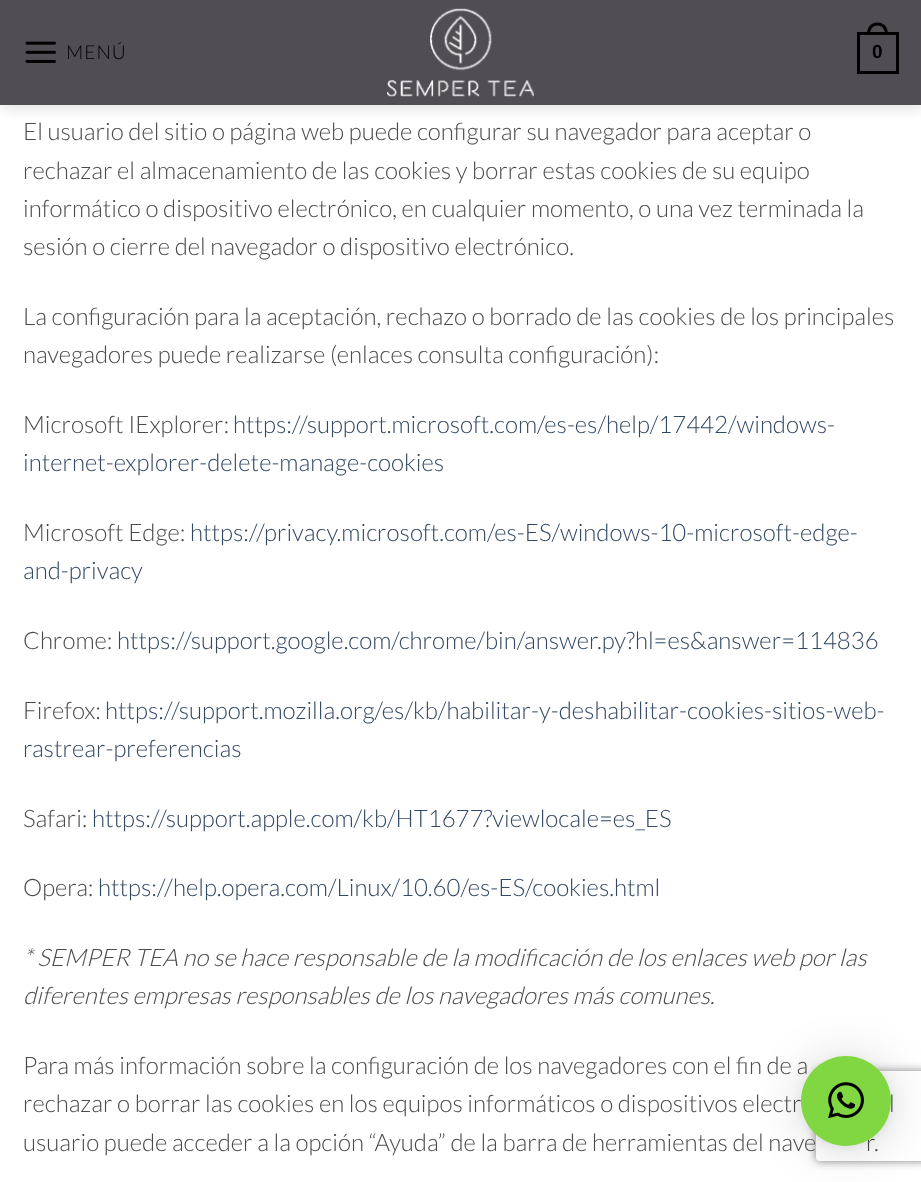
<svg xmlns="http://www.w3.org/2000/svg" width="921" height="1182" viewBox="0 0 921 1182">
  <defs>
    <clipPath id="clip1"><path d="M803 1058H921V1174H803ZM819 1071H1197C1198.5 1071 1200 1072.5 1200 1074V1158C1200 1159.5 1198.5 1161 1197 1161H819C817.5 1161 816 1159.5 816 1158V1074C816 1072.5 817.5 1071 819 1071Z" clip-rule="evenodd"/></clipPath>
  </defs>
  <rect width="100%" height="100%" fill="rgb(255,255,255)"/>
  <rect x="2" y="2" width="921" height="105" fill="rgba(0,0,0,0.15)" filter="blur(7.5px)"/>
  <rect x="0" y="0" width="921" height="105" fill="rgb(80,78,83)"/>
  <image x="25" y="41" width="31" height="22" href="pic1.png"/>
  <text x="66" y="59" font-family="Lato" font-size="19" font-weight="300" letter-spacing="1" fill="rgb(0,0,0)">MENÚ</text>
  <image x="387" y="8" width="147" height="89" href="pic2.png"/>
  <rect x="858.5" y="33.5" width="39" height="39" fill="none" stroke="rgb(0,0,0)" stroke-width="3"/>
  <path d="M877.5 22.5C884.5 22.5 888 28 888 34.5H867C867 28 870.5 22.5 877.5 22.5ZM877.5 25.5C883 25.5 885 30 885 34.5H870C870 30 872 25.5 877.5 25.5Z" fill="rgb(0,0,0)" fill-rule="evenodd"/>
  <text x="872" y="58" font-family="Liberation Sans" font-size="19" font-weight="bold" fill="rgb(0,0,0)">0</text>
  <g font-family="Lato" font-size="24" font-weight="300" fill="rgb(74,74,74)">
    <text>
      <tspan x="23" y="140">El usuario del sitio o página web puede configurar su navegador para aceptar o</tspan>
      <tspan x="23" y="179">rechazar el almacenamiento de las cookies y borrar estas cookies de su equipo</tspan>
      <tspan x="23" y="217">informático o dispositivo electrónico, en cualquier momento, o una vez terminada la</tspan>
      <tspan x="23" y="255">sesión o cierre del navegador o dispositivo electrónico.</tspan>
    </text>
    <text>
      <tspan x="23" y="325">La configuración para la aceptación, rechazo o borrado de las cookies de los principales</tspan>
      <tspan x="23" y="363">navegadores puede realizarse (enlaces consulta configuración):</tspan>
    </text>
    <text x="23" y="433">Microsoft IExplorer:</text>
  </g>
  <g font-family="Lato" font-size="24" font-weight="300" fill="rgb(51,72,98)">
    <text x="233" y="433">https://support.microsoft.com/es-es/help/17442/windows-</text>
    <text x="23" y="471">internet-explorer-delete-manage-cookies</text>
  </g>
  <text x="23" y="541" font-family="Lato" font-size="24" font-weight="300" fill="rgb(74,74,74)">Microsoft Edge:</text>
  <g font-family="Lato" font-size="24" font-weight="300" fill="rgb(51,72,98)">
    <text x="190" y="541">https://privacy.microsoft.com/es-ES/windows-10-microsoft-edge-</text>
    <text x="23" y="579">and-privacy</text>
  </g>
  <text x="23" y="649" font-family="Lato" font-size="24" font-weight="300" fill="rgb(74,74,74)">Chrome:</text>
  <text x="117" y="649" font-family="Lato" font-size="24" font-weight="300" fill="rgb(51,72,98)">https://support.google.com/chrome/bin/answer.py?hl=es&amp;answer=114836</text>
  <text x="23" y="719" font-family="Lato" font-size="24" font-weight="300" fill="rgb(74,74,74)">Firefox:</text>
  <g font-family="Lato" font-size="24" font-weight="300" fill="rgb(51,72,98)">
    <text x="105" y="719">https://support.mozilla.org/es/kb/habilitar-y-deshabilitar-cookies-sitios-web-</text>
    <text x="23" y="757">rastrear-preferencias</text>
  </g>
  <text x="23" y="827" font-family="Lato" font-size="24" font-weight="300" fill="rgb(74,74,74)">Safari:</text>
  <text x="92" y="827" font-family="Lato" font-size="24" font-weight="300" fill="rgb(51,72,98)">https://support.apple.com/kb/HT1677?viewlocale=es_ES</text>
  <text x="23" y="896" font-family="Lato" font-size="24" font-weight="300" fill="rgb(74,74,74)">Opera:</text>
  <text x="98" y="896" font-family="Lato" font-size="24" font-weight="300" fill="rgb(51,72,98)">https://help.opera.com/Linux/10.60/es-ES/cookies.html</text>
  <g font-family="Lato" font-size="24" font-weight="300" font-style="italic" fill="rgb(74,74,74)">
    <text>
      <tspan x="23" y="966">* SEMPER TEA no se hace responsable de la modificación de los enlaces web por las</tspan>
      <tspan x="23" y="1004">diferentes empresas responsables de los navegadores más comunes.</tspan>
    </text>
  </g>
  <g font-family="Lato" font-size="24" font-weight="300" fill="rgb(74,74,74)">
    <text>
      <tspan x="23" y="1074">Para más información sobre la configuración de los navegadores con el fin de a</tspan>
      <tspan x="23" y="1112">rechazar o borrar las cookies en los equipos informáticos o dispositivos electr</tspan>
    </text>
    <text x="889" y="1112">l</text>
    <text x="23" y="1151">usuario puede acceder a la opción “Ayuda” de la barra de herramientas del nave</text>
    <text x="866" y="1151">r.</text>
  </g>
  <rect x="801" y="1059" width="90" height="90" rx="45" fill="rgba(0,0,0,0.16)" filter="blur(24px)"/>
  <rect x="801" y="1058" width="90" height="90" rx="45" fill="rgba(0,0,0,0.06)" filter="blur(4.5px)"/>
  <g clip-path="url(#clip1)">
    <rect x="816" y="1071" width="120" height="90" rx="3" fill="rgb(128,128,128)" filter="blur(4px)"/>
  </g>
  <circle cx="846" cy="1101" r="45" fill="rgb(129,215,66)"/>
  <image x="828" y="1082" width="36" height="37" href="pic3.png"/>
</svg>
